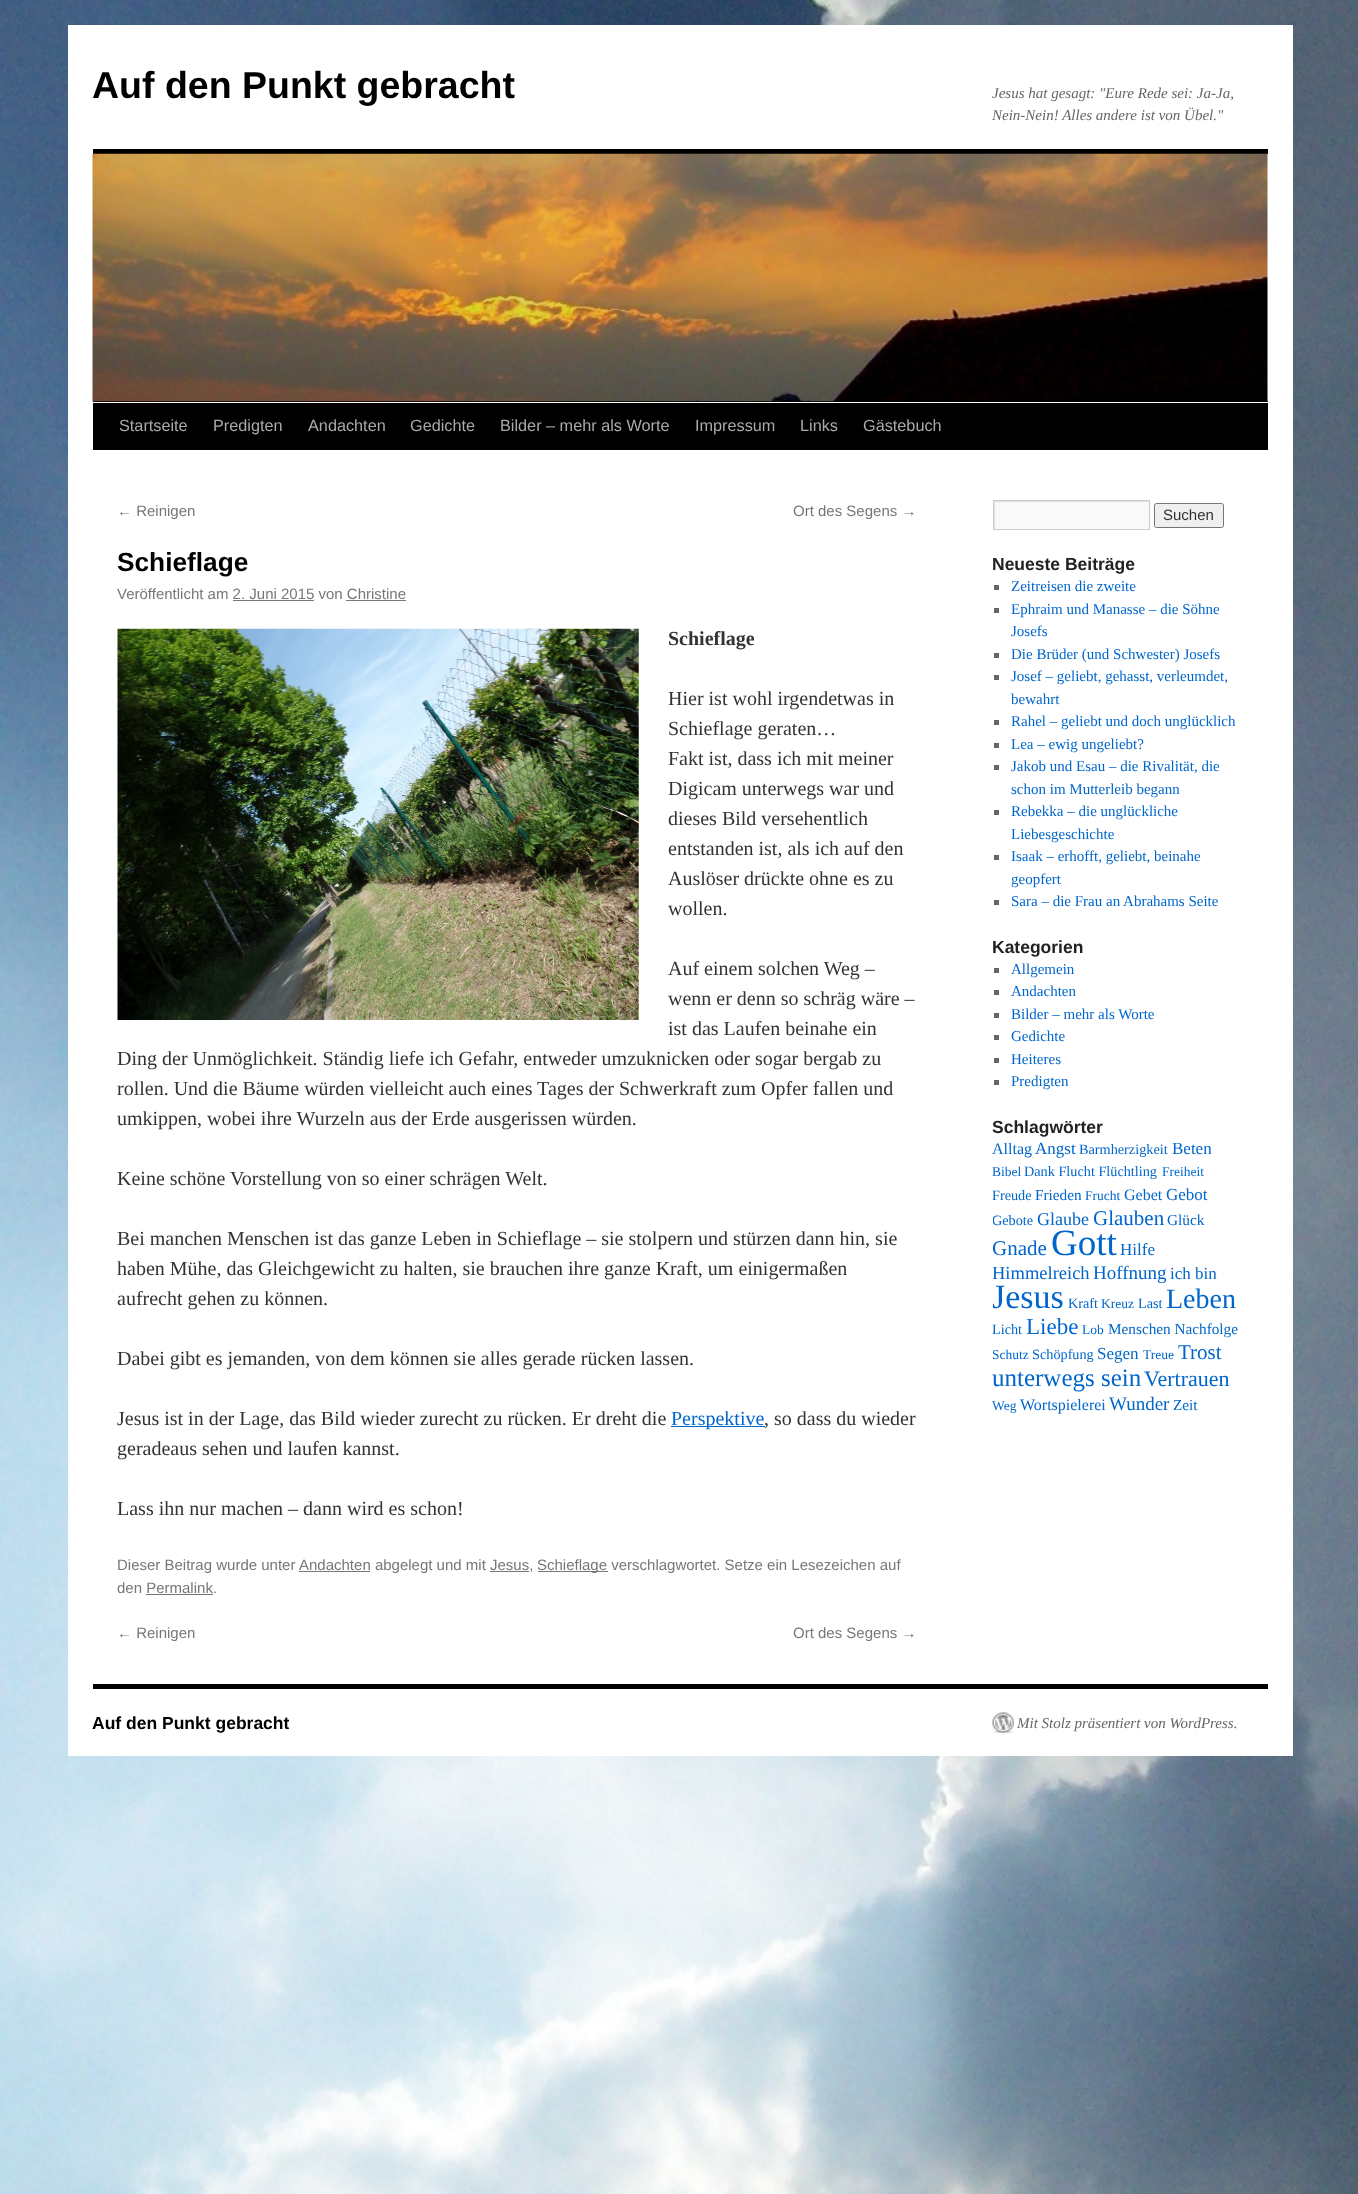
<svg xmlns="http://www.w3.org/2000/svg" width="1358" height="2194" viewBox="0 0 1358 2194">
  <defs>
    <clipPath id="clip1"><rect x="994" y="501" width="155" height="28"/></clipPath>
    <clipPath id="clip2"><rect x="993" y="500" width="275" height="940"/></clipPath>
  </defs>
  <rect width="100%" height="100%" fill="rgb(255,255,255)"/>
  <image x="0" y="0" width="1358" height="2194" href="pic1.png"/>
  <rect x="68" y="25" width="1225" height="1731" fill="rgb(255,255,255)"/>
  <text x="92" y="98" font-family="Liberation Sans" font-size="37.5" font-weight="bold" fill="rgb(0,0,0)">Auf den Punkt gebracht</text>
  <g font-family="Liberation Serif" font-size="15" font-style="italic" fill="rgb(102,102,102)">
    <text>
      <tspan x="992" y="98">Jesus hat gesagt: "Eure Rede sei: Ja-Ja,</tspan>
      <tspan x="992" y="120">Nein-Nein! Alles andere ist von Übel."</tspan>
    </text>
  </g>
  <rect x="93" y="149" width="1175" height="5" fill="rgb(0,0,0)"/>
  <rect x="93" y="401" width="1175" height="1" fill="rgb(0,0,0)"/>
  <image x="92" y="153" width="1176" height="249" href="pic2.png"/>
  <rect x="93" y="403" width="1175" height="47" fill="rgb(0,0,0)"/>
  <g font-family="Liberation Sans" font-size="16.25" fill="rgb(170,170,170)">
    <text x="119" y="431">Startseite</text>
    <text x="213" y="431">Predigten</text>
    <text x="308" y="431">Andachten</text>
    <text x="410" y="431">Gedichte</text>
    <text x="500" y="431">Bilder – mehr als Worte</text>
    <text x="695" y="431">Impressum</text>
    <text x="800" y="431">Links</text>
    <text x="863" y="431">Gästebuch</text>
  </g>
  <g font-family="Liberation Sans" font-size="15" fill="rgb(119,119,119)">
    <text x="117" y="516">← Reinigen</text>
    <text x="793" y="516">Ort des Segens →</text>
  </g>
  <text x="117" y="571" font-family="Liberation Sans" font-size="26.25" font-weight="bold" fill="rgb(0,0,0)">Schieflage</text>
  <text x="117" y="599" font-family="Liberation Sans" font-size="15" fill="rgb(119,119,119)">Veröffentlicht am 2. Juni 2015 von Christine</text>
  <rect x="233" y="600" width="81" height="1" fill="rgb(119,119,119)"/>
  <rect x="346" y="600" width="60" height="1" fill="rgb(119,119,119)"/>
  <image x="117" y="628" width="522" height="392" href="pic3.png"/>
  <text x="668" y="645" font-family="Liberation Serif" font-size="20" font-weight="bold" fill="rgb(51,51,51)">Schieflage</text>
  <g font-family="Liberation Serif" font-size="20" fill="rgb(51,51,51)">
    <text>
      <tspan x="668" y="705">Hier ist wohl irgendetwas in</tspan>
      <tspan x="668" y="735">Schieflage geraten…</tspan>
      <tspan x="668" y="765">Fakt ist, dass ich mit meiner</tspan>
      <tspan x="668" y="795">Digicam unterwegs war und</tspan>
      <tspan x="668" y="825">dieses Bild versehentlich</tspan>
      <tspan x="668" y="855">entstanden ist, als ich auf den</tspan>
      <tspan x="668" y="885">Auslöser drückte ohne es zu</tspan>
      <tspan x="668" y="915">wollen.</tspan>
    </text>
    <text>
      <tspan x="668" y="975">Auf einem solchen Weg –</tspan>
      <tspan x="668" y="1005">wenn er denn so schräg wäre –</tspan>
      <tspan x="668" y="1035">ist das Laufen beinahe ein</tspan>
    </text>
    <text>
      <tspan x="117" y="1065">Ding der Unmöglichkeit. Ständig liefe ich Gefahr, entweder umzuknicken oder sogar bergab zu</tspan>
      <tspan x="117" y="1095">rollen. Und die Bäume würden vielleicht auch eines Tages der Schwerkraft zum Opfer fallen und</tspan>
      <tspan x="117" y="1125">umkippen, wobei ihre Wurzeln aus der Erde ausgerissen würden.</tspan>
    </text>
    <text x="117" y="1185">Keine schöne Vorstellung von so einer schrägen Welt.</text>
    <text>
      <tspan x="117" y="1245">Bei manchen Menschen ist das ganze Leben in Schieflage – sie stolpern und stürzen dann hin, sie</tspan>
      <tspan x="117" y="1275">haben Mühe, das Gleichgewicht zu halten, sie brauchen ihre ganze Kraft, um einigermaßen</tspan>
      <tspan x="117" y="1305">aufrecht gehen zu können.</tspan>
    </text>
    <text x="117" y="1365">Dabei gibt es jemanden, von dem können sie alles gerade rücken lassen.</text>
    <text x="117" y="1425">Jesus ist in der Lage, das Bild wieder zurecht zu rücken. Er dreht die</text>
  </g>
  <rect x="671" y="1426" width="94" height="1" fill="rgb(0,102,204)"/>
  <text x="671" y="1425" font-family="Liberation Serif" font-size="20" fill="rgb(0,102,204)">Perspektive</text>
  <g font-family="Liberation Serif" font-size="20" fill="rgb(51,51,51)">
    <text x="764" y="1425">, so dass du wieder</text>
    <text x="117" y="1455">geradeaus sehen und laufen kannst.</text>
    <text x="117" y="1515">Lass ihn nur machen – dann wird es schon!</text>
  </g>
  <text x="117" y="1570" font-family="Liberation Sans" font-size="15" fill="rgb(119,119,119)">Dieser Beitrag wurde unter</text>
  <rect x="299" y="1571" width="71" height="1" fill="rgb(119,119,119)"/>
  <text x="299" y="1570" font-family="Liberation Sans" font-size="15" fill="rgb(119,119,119)">Andachten abgelegt und mit Jesus,</text>
  <rect x="538" y="1571" width="70" height="1" fill="rgb(119,119,119)"/>
  <text x="537" y="1570" font-family="Liberation Sans" font-size="15" fill="rgb(119,119,119)">Schieflage verschlagwortet. Setze ein Lesezeichen auf</text>
  <rect x="490" y="1571" width="39" height="1" fill="rgb(119,119,119)"/>
  <text x="117" y="1593" font-family="Liberation Sans" font-size="15" fill="rgb(119,119,119)">den Permalink.</text>
  <rect x="146" y="1594" width="67" height="1" fill="rgb(119,119,119)"/>
  <g font-family="Liberation Sans" font-size="15" fill="rgb(119,119,119)">
    <text x="117" y="1638">← Reinigen</text>
    <text x="793" y="1638">Ort des Segens →</text>
  </g>
  <rect x="995" y="502" width="154" height="27" fill="rgb(249,249,249)"/>
  <g clip-path="url(#clip1)">
    <path d="M870 378H1272V652H870ZM995 502H1150V530H995Z" fill="rgb(224,224,224)" fill-rule="evenodd"/>
  </g>
  <rect x="993.5" y="500.5" width="156" height="29" fill="none" stroke="rgb(204,204,204)"/>
  <rect x="1154.5" y="503.5" width="69" height="24" rx="2" fill="rgb(239,239,239)" stroke="rgb(118,118,118)"/>
  <text x="1163" y="520" font-family="Liberation Sans" font-size="15" fill="rgb(51,51,51)">Suchen</text>
  <text x="992" y="570" font-family="Liberation Sans" font-size="17.5" font-weight="bold" fill="rgb(34,34,34)">Neueste Beiträge</text>
  <rect x="994" y="585" width="5" height="5" fill="rgb(102,102,102)"/>
  <text x="1011" y="591" font-family="Liberation Serif" font-size="15" fill="rgb(0,102,204)">Zeitreisen die zweite</text>
  <rect x="994" y="608" width="5" height="5" fill="rgb(102,102,102)"/>
  <g font-family="Liberation Serif" font-size="15" fill="rgb(0,102,204)">
    <text>
      <tspan x="1011" y="614">Ephraim und Manasse – die Söhne</tspan>
      <tspan x="1011" y="636">Josefs</tspan>
    </text>
  </g>
  <rect x="994" y="653" width="5" height="5" fill="rgb(102,102,102)"/>
  <text x="1011" y="659" font-family="Liberation Serif" font-size="15" fill="rgb(0,102,204)">Die Brüder (und Schwester) Josefs</text>
  <rect x="994" y="675" width="5" height="5" fill="rgb(102,102,102)"/>
  <g font-family="Liberation Serif" font-size="15" fill="rgb(0,102,204)">
    <text>
      <tspan x="1011" y="681">Josef – geliebt, gehasst, verleumdet,</tspan>
      <tspan x="1011" y="704">bewahrt</tspan>
    </text>
  </g>
  <rect x="994" y="720" width="5" height="5" fill="rgb(102,102,102)"/>
  <text x="1011" y="726" font-family="Liberation Serif" font-size="15" fill="rgb(0,102,204)">Rahel – geliebt und doch unglücklich</text>
  <rect x="994" y="743" width="5" height="5" fill="rgb(102,102,102)"/>
  <text x="1011" y="749" font-family="Liberation Serif" font-size="15" fill="rgb(0,102,204)">Lea – ewig ungeliebt?</text>
  <rect x="994" y="765" width="5" height="5" fill="rgb(102,102,102)"/>
  <g font-family="Liberation Serif" font-size="15" fill="rgb(0,102,204)">
    <text>
      <tspan x="1011" y="771">Jakob und Esau – die Rivalität, die</tspan>
      <tspan x="1011" y="794">schon im Mutterleib begann</tspan>
    </text>
  </g>
  <rect x="994" y="810" width="5" height="5" fill="rgb(102,102,102)"/>
  <g font-family="Liberation Serif" font-size="15" fill="rgb(0,102,204)">
    <text>
      <tspan x="1011" y="816">Rebekka – die unglückliche</tspan>
      <tspan x="1011" y="839">Liebesgeschichte</tspan>
    </text>
  </g>
  <rect x="994" y="855" width="5" height="5" fill="rgb(102,102,102)"/>
  <g font-family="Liberation Serif" font-size="15" fill="rgb(0,102,204)">
    <text>
      <tspan x="1011" y="861">Isaak – erhofft, geliebt, beinahe</tspan>
      <tspan x="1011" y="884">geopfert</tspan>
    </text>
  </g>
  <rect x="994" y="900" width="5" height="5" fill="rgb(102,102,102)"/>
  <text x="1011" y="906" font-family="Liberation Serif" font-size="15" fill="rgb(0,102,204)">Sara – die Frau an Abrahams Seite</text>
  <text x="992" y="953" font-family="Liberation Sans" font-size="17.5" font-weight="bold" fill="rgb(34,34,34)">Kategorien</text>
  <rect x="994" y="968" width="5" height="5" fill="rgb(102,102,102)"/>
  <text x="1011" y="974" font-family="Liberation Serif" font-size="15" fill="rgb(0,102,204)">Allgemein</text>
  <rect x="994" y="990" width="5" height="5" fill="rgb(102,102,102)"/>
  <text x="1011" y="996" font-family="Liberation Serif" font-size="15" fill="rgb(0,102,204)">Andachten</text>
  <rect x="994" y="1013" width="5" height="5" fill="rgb(102,102,102)"/>
  <text x="1011" y="1019" font-family="Liberation Serif" font-size="15" fill="rgb(0,102,204)">Bilder – mehr als Worte</text>
  <rect x="994" y="1035" width="5" height="5" fill="rgb(102,102,102)"/>
  <text x="1011" y="1041" font-family="Liberation Serif" font-size="15" fill="rgb(0,102,204)">Gedichte</text>
  <rect x="994" y="1058" width="5" height="5" fill="rgb(102,102,102)"/>
  <text x="1011" y="1064" font-family="Liberation Serif" font-size="15" fill="rgb(0,102,204)">Heiteres</text>
  <rect x="994" y="1080" width="5" height="5" fill="rgb(102,102,102)"/>
  <text x="1011" y="1086" font-family="Liberation Serif" font-size="15" fill="rgb(0,102,204)">Predigten</text>
  <text x="992" y="1133" font-family="Liberation Sans" font-size="17.5" font-weight="bold" fill="rgb(34,34,34)">Schlagwörter</text>
  <text x="992" y="1154" font-family="Liberation Serif" font-size="16" fill="rgb(0,102,204)">Alltag</text>
  <text x="1035" y="1154" font-family="Liberation Serif" font-size="17" fill="rgb(0,102,204)">Angst</text>
  <text x="1079" y="1154" font-family="Liberation Serif" font-size="14.25" fill="rgb(0,102,204)">Barmherzigkeit</text>
  <text x="1172" y="1154" font-family="Liberation Serif" font-size="17" fill="rgb(0,102,204)">Beten</text>
  <text x="992" y="1176" font-family="Liberation Serif" font-size="13.5" fill="rgb(0,102,204)">Bibel</text>
  <text x="1024" y="1176" font-family="Liberation Serif" font-size="14.25" fill="rgb(0,102,204)">Dank Flucht Flüchtling</text>
  <text x="1162" y="1176" font-family="Liberation Serif" font-size="13.5" fill="rgb(0,102,204)">Freiheit</text>
  <text x="992" y="1200" font-family="Liberation Serif" font-size="14.25" fill="rgb(0,102,204)">Freude</text>
  <text x="1035" y="1200" font-family="Liberation Serif" font-size="15.25" fill="rgb(0,102,204)">Frieden</text>
  <text x="1085" y="1200" font-family="Liberation Serif" font-size="13.5" fill="rgb(0,102,204)">Frucht</text>
  <text x="1124" y="1200" font-family="Liberation Serif" font-size="16" fill="rgb(0,102,204)">Gebet</text>
  <text x="1166" y="1200" font-family="Liberation Serif" font-size="17" fill="rgb(0,102,204)">Gebot</text>
  <g clip-path="url(#clip2)">
    <text x="992" y="1225" font-family="Liberation Serif" font-size="14.25" fill="rgb(0,102,204)">Gebote</text>
  </g>
  <text x="1037" y="1225" font-family="Liberation Serif" font-size="18" fill="rgb(0,102,204)">Glaube</text>
  <text x="1093" y="1225" font-family="Liberation Serif" font-size="21" fill="rgb(0,102,204)">Glauben</text>
  <text x="1167" y="1225" font-family="Liberation Serif" font-size="15.25" fill="rgb(0,102,204)">Glück</text>
  <g clip-path="url(#clip2)">
    <text x="992" y="1255" font-family="Liberation Serif" font-size="21" fill="rgb(0,102,204)">Gnade</text>
  </g>
  <text x="1051" y="1255" font-family="Liberation Serif" font-size="37" fill="rgb(0,102,204)">Gott</text>
  <text x="1120" y="1255" font-family="Liberation Serif" font-size="17" fill="rgb(0,102,204)">Hilfe</text>
  <g clip-path="url(#clip2)">
    <text x="992" y="1279" font-family="Liberation Serif" font-size="18.5" fill="rgb(0,102,204)">Himmelreich</text>
  </g>
  <text x="1093" y="1279" font-family="Liberation Serif" font-size="19" fill="rgb(0,102,204)">Hoffnung</text>
  <text x="1170" y="1279" font-family="Liberation Serif" font-size="17" fill="rgb(0,102,204)">ich bin</text>
  <g clip-path="url(#clip2)">
    <text x="992" y="1308" font-family="Liberation Serif" font-size="34" fill="rgb(0,102,204)">Jesus</text>
  </g>
  <text x="1068" y="1308" font-family="Liberation Serif" font-size="14.25" fill="rgb(0,102,204)">Kraft</text>
  <text x="1101" y="1308" font-family="Liberation Serif" font-size="13.5" fill="rgb(0,102,204)">Kreuz</text>
  <text x="1138" y="1308" font-family="Liberation Serif" font-size="14.25" fill="rgb(0,102,204)">Last</text>
  <text x="1166" y="1308" font-family="Liberation Serif" font-size="28" fill="rgb(0,102,204)">Leben</text>
  <text x="992" y="1334" font-family="Liberation Serif" font-size="14.25" fill="rgb(0,102,204)">Licht</text>
  <text x="1026" y="1334" font-family="Liberation Serif" font-size="23" fill="rgb(0,102,204)">Liebe</text>
  <text x="1082" y="1334" font-family="Liberation Serif" font-size="13.5" fill="rgb(0,102,204)">Lob</text>
  <text x="1108" y="1334" font-family="Liberation Serif" font-size="15.25" fill="rgb(0,102,204)">Menschen Nachfolge</text>
  <g clip-path="url(#clip2)">
    <text x="992" y="1359" font-family="Liberation Serif" font-size="13.5" fill="rgb(0,102,204)">Schutz</text>
  </g>
  <text x="1032" y="1359" font-family="Liberation Serif" font-size="14.25" fill="rgb(0,102,204)">Schöpfung</text>
  <text x="1097" y="1359" font-family="Liberation Serif" font-size="17" fill="rgb(0,102,204)">Segen</text>
  <text x="1143" y="1359" font-family="Liberation Serif" font-size="13.5" fill="rgb(0,102,204)">Treue</text>
  <text x="1178" y="1359" font-family="Liberation Serif" font-size="21" fill="rgb(0,102,204)">Trost</text>
  <text x="992" y="1386" font-family="Liberation Serif" font-size="25" fill="rgb(0,102,204)">unterwegs sein</text>
  <text x="1144" y="1386" font-family="Liberation Serif" font-size="22" fill="rgb(0,102,204)">Vertrauen</text>
  <text x="992" y="1410" font-family="Liberation Serif" font-size="13.5" fill="rgb(0,102,204)">Weg</text>
  <text x="1020" y="1410" font-family="Liberation Serif" font-size="16" fill="rgb(0,102,204)">Wortspielerei</text>
  <text x="1109" y="1410" font-family="Liberation Serif" font-size="19" fill="rgb(0,102,204)">Wunder</text>
  <text x="1173" y="1410" font-family="Liberation Serif" font-size="15.25" fill="rgb(0,102,204)">Zeit</text>
  <rect x="93" y="1684" width="1175" height="5" fill="rgb(0,0,0)"/>
  <text x="92" y="1729" font-family="Liberation Sans" font-size="17.5" font-weight="bold" fill="rgb(0,0,0)">Auf den Punkt gebracht</text>
  <image x="992" y="1712" width="22" height="21" href="pic4.png"/>
  <text x="1017" y="1728" font-family="Liberation Serif" font-size="15" font-style="italic" fill="rgb(102,102,102)">Mit Stolz präsentiert von WordPress.</text>
</svg>
